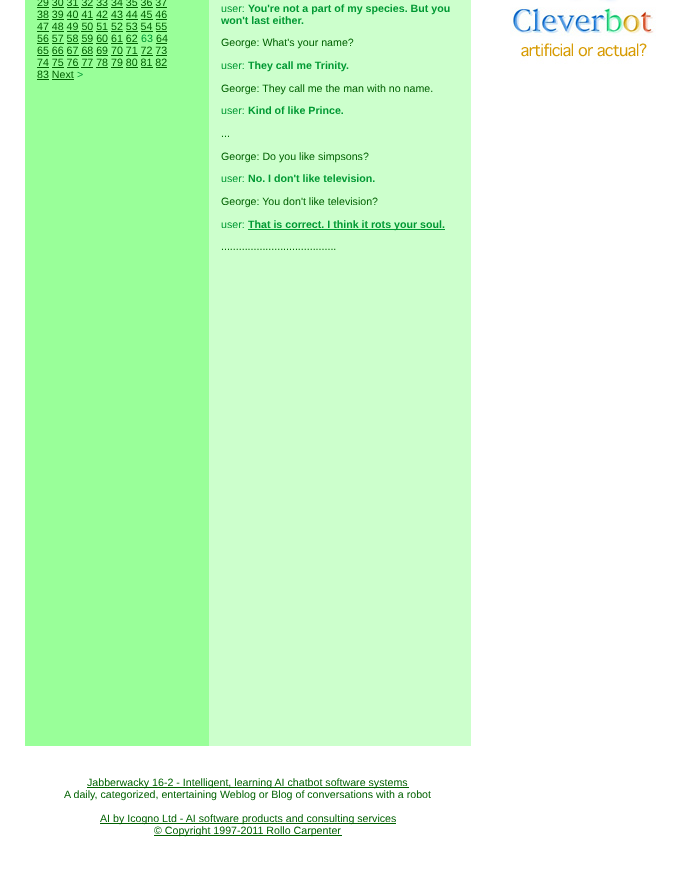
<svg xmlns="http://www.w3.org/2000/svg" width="693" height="869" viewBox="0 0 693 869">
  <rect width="100%" height="100%" fill="rgb(255,255,255)"/>
  <rect x="25" y="0" width="184" height="746" fill="rgb(153,255,153)"/>
  <text x="37" y="6" font-family="Liberation Sans" font-size="10.65" fill="rgb(0,96,0)">29 30 31 32 33 34 35 36 37</text>
  <rect x="37" y="7" width="12" height="1" fill="rgb(0,96,0)"/>
  <rect x="52" y="7" width="12" height="1" fill="rgb(0,96,0)"/>
  <rect x="67" y="7" width="12" height="1" fill="rgb(0,96,0)"/>
  <rect x="81" y="7" width="12" height="1" fill="rgb(0,96,0)"/>
  <rect x="96" y="7" width="12" height="1" fill="rgb(0,96,0)"/>
  <rect x="111" y="7" width="12" height="1" fill="rgb(0,96,0)"/>
  <rect x="126" y="7" width="12" height="1" fill="rgb(0,96,0)"/>
  <rect x="141" y="7" width="12" height="1" fill="rgb(0,96,0)"/>
  <rect x="156" y="7" width="11" height="1" fill="rgb(0,96,0)"/>
  <text x="37" y="18" font-family="Liberation Sans" font-size="10.65" fill="rgb(0,96,0)">38 39 40 41 42 43 44 45 46</text>
  <rect x="37" y="19" width="12" height="1" fill="rgb(0,96,0)"/>
  <rect x="52" y="19" width="12" height="1" fill="rgb(0,96,0)"/>
  <rect x="67" y="19" width="12" height="1" fill="rgb(0,96,0)"/>
  <rect x="81" y="19" width="12" height="1" fill="rgb(0,96,0)"/>
  <rect x="96" y="19" width="12" height="1" fill="rgb(0,96,0)"/>
  <rect x="111" y="19" width="12" height="1" fill="rgb(0,96,0)"/>
  <rect x="126" y="19" width="12" height="1" fill="rgb(0,96,0)"/>
  <rect x="141" y="19" width="12" height="1" fill="rgb(0,96,0)"/>
  <rect x="156" y="19" width="11" height="1" fill="rgb(0,96,0)"/>
  <text x="37" y="30" font-family="Liberation Sans" font-size="10.65" fill="rgb(0,96,0)">47 48 49 50 51 52 53 54 55</text>
  <rect x="37" y="31" width="12" height="1" fill="rgb(0,96,0)"/>
  <rect x="52" y="31" width="12" height="1" fill="rgb(0,96,0)"/>
  <rect x="67" y="31" width="12" height="1" fill="rgb(0,96,0)"/>
  <rect x="81" y="31" width="12" height="1" fill="rgb(0,96,0)"/>
  <rect x="96" y="31" width="12" height="1" fill="rgb(0,96,0)"/>
  <rect x="111" y="31" width="12" height="1" fill="rgb(0,96,0)"/>
  <rect x="126" y="31" width="12" height="1" fill="rgb(0,96,0)"/>
  <rect x="141" y="31" width="12" height="1" fill="rgb(0,96,0)"/>
  <rect x="156" y="31" width="11" height="1" fill="rgb(0,96,0)"/>
  <text x="37" y="42" font-family="Liberation Sans" font-size="10.65" fill="rgb(0,96,0)">56 57 58 59 60 61 62</text>
  <rect x="37" y="43" width="12" height="1" fill="rgb(0,96,0)"/>
  <rect x="52" y="43" width="12" height="1" fill="rgb(0,96,0)"/>
  <rect x="67" y="43" width="12" height="1" fill="rgb(0,96,0)"/>
  <rect x="81" y="43" width="12" height="1" fill="rgb(0,96,0)"/>
  <rect x="96" y="43" width="12" height="1" fill="rgb(0,96,0)"/>
  <rect x="111" y="43" width="12" height="1" fill="rgb(0,96,0)"/>
  <rect x="126" y="43" width="12" height="1" fill="rgb(0,96,0)"/>
  <text x="141" y="42" font-family="Liberation Sans" font-size="10.65" fill="rgb(0,153,51)">63</text>
  <text x="156" y="42" font-family="Liberation Sans" font-size="10.65" fill="rgb(0,96,0)">64</text>
  <rect x="156" y="43" width="11" height="1" fill="rgb(0,96,0)"/>
  <text x="37" y="54" font-family="Liberation Sans" font-size="10.65" fill="rgb(0,96,0)">65 66 67 68 69 70 71 72 73</text>
  <rect x="37" y="55" width="12" height="1" fill="rgb(0,96,0)"/>
  <rect x="52" y="55" width="12" height="1" fill="rgb(0,96,0)"/>
  <rect x="67" y="55" width="12" height="1" fill="rgb(0,96,0)"/>
  <rect x="81" y="55" width="12" height="1" fill="rgb(0,96,0)"/>
  <rect x="96" y="55" width="12" height="1" fill="rgb(0,96,0)"/>
  <rect x="111" y="55" width="12" height="1" fill="rgb(0,96,0)"/>
  <rect x="126" y="55" width="12" height="1" fill="rgb(0,96,0)"/>
  <rect x="141" y="55" width="12" height="1" fill="rgb(0,96,0)"/>
  <rect x="156" y="55" width="11" height="1" fill="rgb(0,96,0)"/>
  <text x="37" y="66" font-family="Liberation Sans" font-size="10.65" fill="rgb(0,96,0)">74 75 76 77 78 79 80 81 82</text>
  <rect x="37" y="67" width="12" height="1" fill="rgb(0,96,0)"/>
  <rect x="52" y="67" width="12" height="1" fill="rgb(0,96,0)"/>
  <rect x="67" y="67" width="12" height="1" fill="rgb(0,96,0)"/>
  <rect x="81" y="67" width="12" height="1" fill="rgb(0,96,0)"/>
  <rect x="96" y="67" width="12" height="1" fill="rgb(0,96,0)"/>
  <rect x="111" y="67" width="12" height="1" fill="rgb(0,96,0)"/>
  <rect x="126" y="67" width="12" height="1" fill="rgb(0,96,0)"/>
  <rect x="141" y="67" width="12" height="1" fill="rgb(0,96,0)"/>
  <rect x="156" y="67" width="11" height="1" fill="rgb(0,96,0)"/>
  <text x="37" y="78" font-family="Liberation Sans" font-size="10.65" fill="rgb(0,96,0)">83 Next</text>
  <rect x="37" y="79" width="12" height="1" fill="rgb(0,96,0)"/>
  <rect x="52" y="79" width="22" height="1" fill="rgb(0,96,0)"/>
  <text x="77" y="78" font-family="Liberation Sans" font-size="10.65" fill="rgb(0,153,51)">&gt;</text>
  <rect x="209" y="0" width="262" height="746" fill="rgb(204,255,204)"/>
  <text x="221" y="12" font-family="Liberation Sans" font-size="10.65" fill="rgb(0,153,51)">user:</text>
  <g font-family="Liberation Sans" font-size="10.65" font-weight="bold" fill="rgb(0,153,51)">
    <text x="248" y="12">You're not a part of my species. But you</text>
    <text x="221" y="24">won't last either.</text>
  </g>
  <text x="221" y="46" font-family="Liberation Sans" font-size="10.65" fill="rgb(0,96,0)">George: What's your name?</text>
  <text x="221" y="69" font-family="Liberation Sans" font-size="10.65" fill="rgb(0,153,51)">user:</text>
  <text x="248" y="69" font-family="Liberation Sans" font-size="10.65" font-weight="bold" fill="rgb(0,153,51)">They call me Trinity.</text>
  <text x="221" y="92" font-family="Liberation Sans" font-size="10.65" fill="rgb(0,96,0)">George: They call me the man with no name.</text>
  <text x="221" y="114" font-family="Liberation Sans" font-size="10.65" fill="rgb(0,153,51)">user:</text>
  <text x="248" y="114" font-family="Liberation Sans" font-size="10.65" font-weight="bold" fill="rgb(0,153,51)">Kind of like Prince.</text>
  <g font-family="Liberation Sans" font-size="10.65" fill="rgb(0,96,0)">
    <text x="221" y="137">...</text>
    <text x="221" y="160">George: Do you like simpsons?</text>
  </g>
  <text x="221" y="182" font-family="Liberation Sans" font-size="10.65" fill="rgb(0,153,51)">user:</text>
  <text x="248" y="182" font-family="Liberation Sans" font-size="10.65" font-weight="bold" fill="rgb(0,153,51)">No. I don't like television.</text>
  <text x="221" y="205" font-family="Liberation Sans" font-size="10.65" fill="rgb(0,96,0)">George: You don't like television?</text>
  <text x="221" y="228" font-family="Liberation Sans" font-size="10.65" fill="rgb(0,153,51)">user:</text>
  <rect x="248" y="229" width="197" height="1" fill="rgb(0,153,51)"/>
  <text x="248" y="228" font-family="Liberation Sans" font-size="10.65" font-weight="bold" fill="rgb(0,153,51)">That is correct. I think it rots your soul.</text>
  <text x="221" y="250" font-family="Liberation Sans" font-size="10.65" fill="rgb(0,96,0)">.......................................</text>
  <rect x="87" y="787" width="322" height="1" fill="rgb(0,96,0)"/>
  <g font-family="Liberation Sans" font-size="10.65" fill="rgb(0,96,0)">
    <text x="87" y="786">Jabberwacky 16-2 - Intelligent, learning AI chatbot software systems</text>
    <text x="64" y="798">A daily, categorized, entertaining Weblog or Blog of conversations with a robot</text>
  </g>
  <rect x="100" y="823" width="296" height="1" fill="rgb(0,96,0)"/>
  <text x="100" y="822" font-family="Liberation Sans" font-size="10.65" fill="rgb(0,96,0)">AI by Icogno Ltd - AI software products and consulting services</text>
  <rect x="154" y="835" width="188" height="1" fill="rgb(0,96,0)"/>
  <text x="154" y="834" font-family="Liberation Sans" font-size="10.65" fill="rgb(0,96,0)">© Copyright 1997-2011 Rollo Carpenter</text>
  <image x="510" y="0" width="146" height="64" href="pic1.png"/>
</svg>
